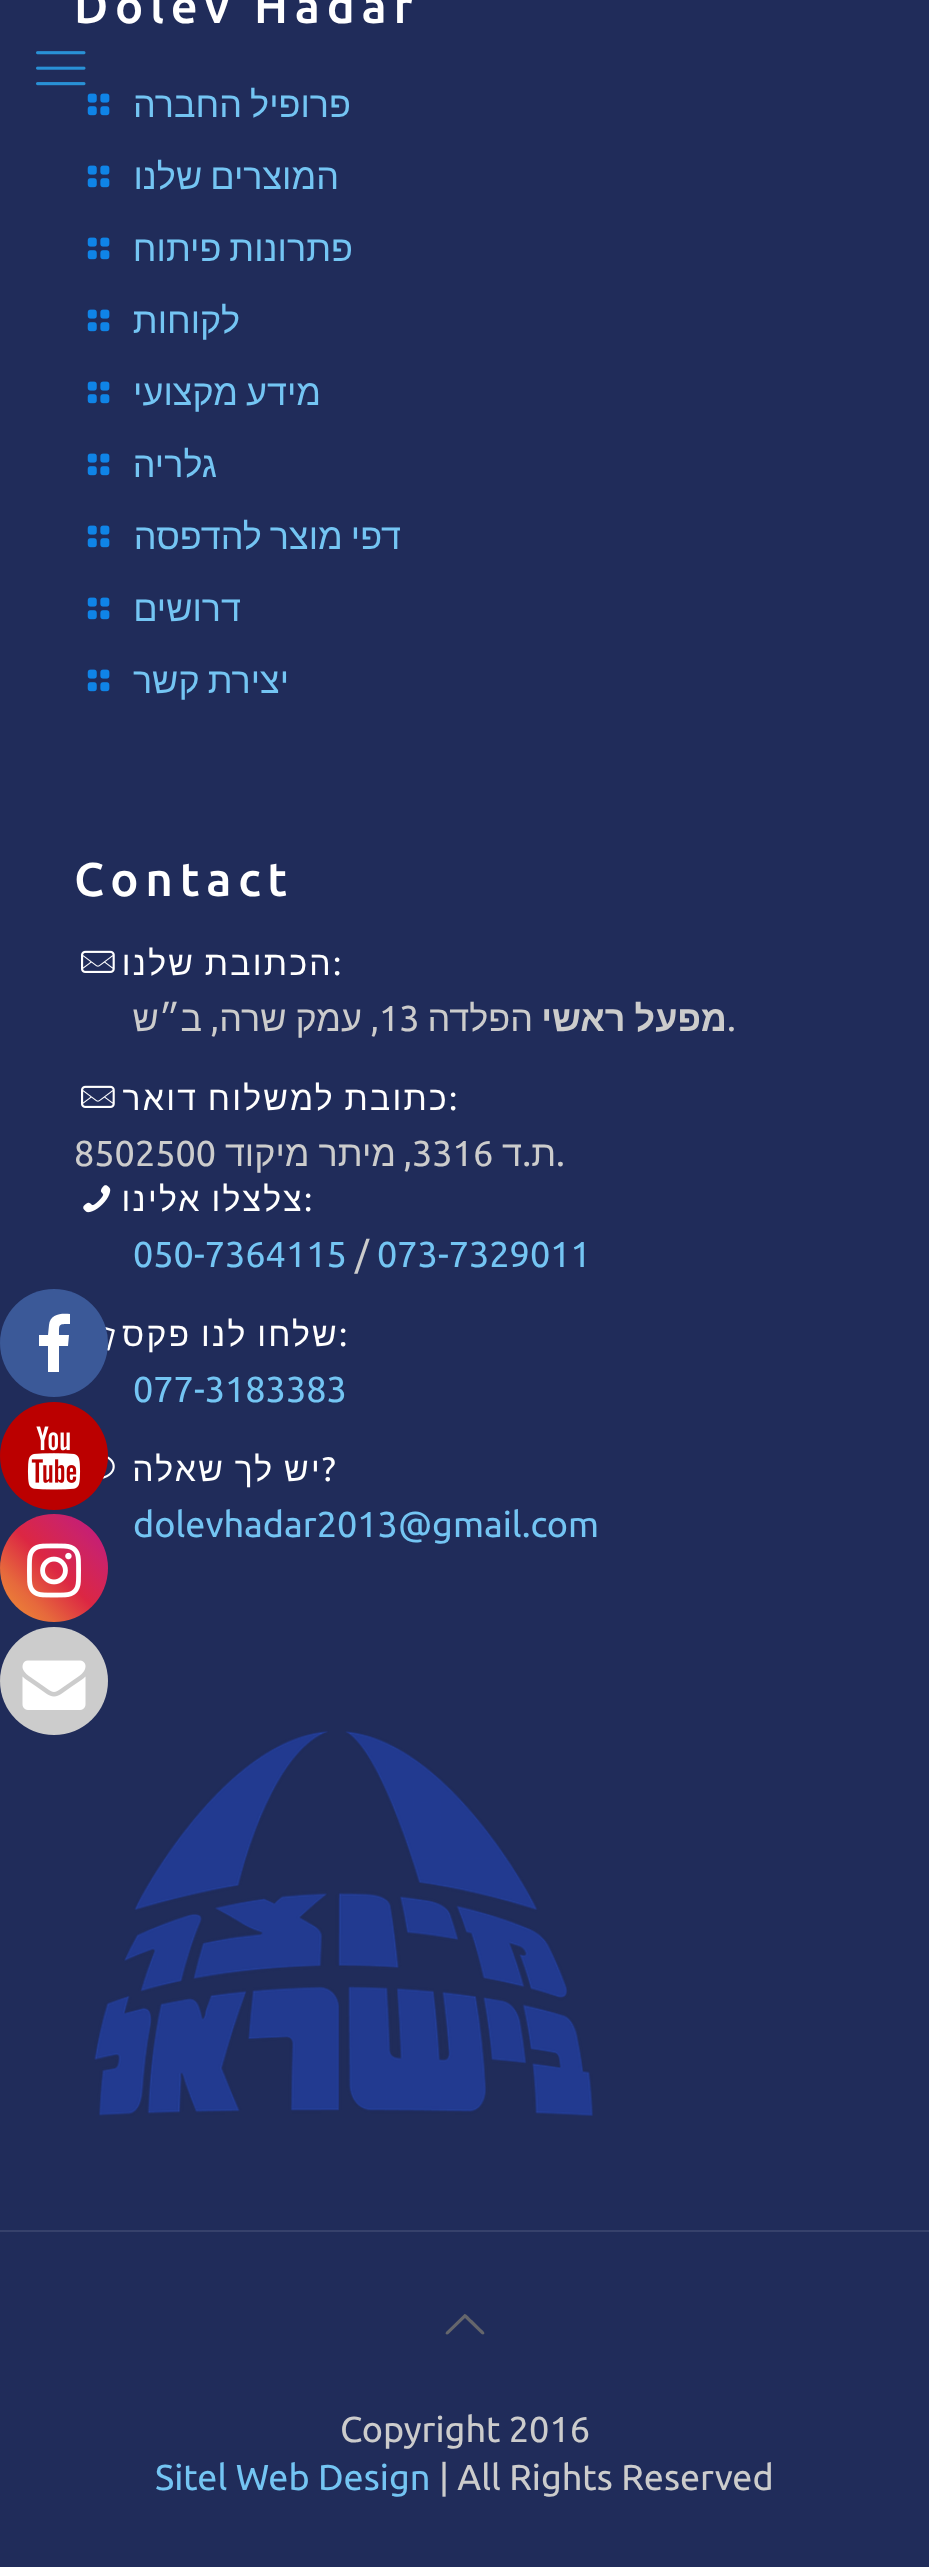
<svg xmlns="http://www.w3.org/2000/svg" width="929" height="2567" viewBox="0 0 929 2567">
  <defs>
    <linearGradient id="g1" gradientUnits="userSpaceOnUse" x1="0" y1="1622" x2="108" y2="1514"><stop offset="0" stop-color="rgb(240,148,51)"/><stop offset="0.25" stop-color="rgb(230,104,60)"/><stop offset="0.5" stop-color="rgb(220,39,67)"/><stop offset="0.75" stop-color="rgb(204,35,102)"/><stop offset="1" stop-color="rgb(188,24,136)"/></linearGradient>
  </defs>
  <rect width="100%" height="100%" fill="rgb(32,44,90)"/>
  <text x="74" y="23" font-family="Ubuntu" font-size="47.25" font-weight="500" letter-spacing="6.75" fill="rgb(255,255,255)">Dolev Hadar</text>
  <text x="351" y="117" word-spacing="-2" font-family="Liberation Sans" font-size="36" direction="rtl" fill="rgb(116,197,243)">פרופיל החברה</text>
  <image x="87" y="93" width="23" height="23" href="pic1.png"/>
  <text x="339" y="189" word-spacing="-2" font-family="Liberation Sans" font-size="36" direction="rtl" fill="rgb(116,197,243)">המוצרים שלנו</text>
  <image x="87" y="165" width="23" height="23" href="pic1.png"/>
  <text x="353" y="261" word-spacing="-2" font-family="Liberation Sans" font-size="36" direction="rtl" fill="rgb(116,197,243)">פתרונות פיתוח</text>
  <image x="87" y="237" width="23" height="23" href="pic1.png"/>
  <text x="240" y="333" font-family="Liberation Sans" font-size="36" direction="rtl" fill="rgb(116,197,243)">לקוחות</text>
  <image x="87" y="309" width="23" height="23" href="pic1.png"/>
  <text x="321" y="405" word-spacing="-2" font-family="Liberation Sans" font-size="36" direction="rtl" fill="rgb(116,197,243)">מידע מקצועי</text>
  <image x="87" y="381" width="23" height="23" href="pic1.png"/>
  <text x="217" y="477" font-family="Liberation Sans" font-size="36" direction="rtl" fill="rgb(116,197,243)">גלריה</text>
  <image x="87" y="453" width="23" height="23" href="pic1.png"/>
  <text x="401" y="549" word-spacing="-2" font-family="Liberation Sans" font-size="36" direction="rtl" fill="rgb(116,197,243)">דפי מוצר להדפסה</text>
  <image x="87" y="525" width="23" height="23" href="pic1.png"/>
  <text x="241" y="621" font-family="Liberation Sans" font-size="36" direction="rtl" fill="rgb(116,197,243)">דרושים</text>
  <image x="87" y="597" width="23" height="23" href="pic1.png"/>
  <text x="289" y="693" word-spacing="-2" font-family="Liberation Sans" font-size="36" direction="rtl" fill="rgb(116,197,243)">יצירת קשר</text>
  <image x="87" y="669" width="23" height="23" href="pic1.png"/>
  <text x="74" y="896" font-family="Ubuntu" font-size="47.25" font-weight="500" letter-spacing="6.75" fill="rgb(255,255,255)">Contact</text>
  <text x="333" y="975" font-family="Ubuntu" font-size="33.75" letter-spacing="2.25" fill="rgb(255,255,255)">:</text>
  <text x="333" y="975" word-spacing="-2" font-family="Liberation Sans" font-size="33.75" letter-spacing="2.25" direction="rtl" fill="rgb(255,255,255)">הכתובת שלנו</text>
  <image x="81" y="950" width="34" height="23" href="pic2.png"/>
  <text x="727" y="1031" font-family="Ubuntu" font-size="36" fill="rgb(204,204,204)">.</text>
  <text x="727" y="1031" word-spacing="-1" font-family="Liberation Sans" font-size="36" font-weight="bold" direction="rtl" fill="rgb(204,204,204)">מפעל ראשי</text>
  <text x="533" y="1031" font-family="Liberation Sans" font-size="36" direction="rtl" fill="rgb(204,204,204)">הפלדה</text>
  <text x="379" y="1031" font-family="Ubuntu" font-size="36" fill="rgb(204,204,204)">13</text>
  <text x="379" y="1031" font-family="Ubuntu" font-size="36" direction="rtl" fill="rgb(204,204,204)">,</text>
  <text x="362" y="1031" word-spacing="-1" font-family="Liberation Sans" font-size="36" direction="rtl" fill="rgb(204,204,204)">עמק שרה</text>
  <text x="219" y="1031" font-family="Ubuntu" font-size="36" direction="rtl" fill="rgb(204,204,204)">,</text>
  <text x="202" y="1031" font-family="Liberation Sans" font-size="36" direction="rtl" fill="rgb(204,204,204)">ב״ש</text>
  <text x="449" y="1110" font-family="Ubuntu" font-size="33.75" letter-spacing="2.25" fill="rgb(255,255,255)">:</text>
  <text x="449" y="1110" word-spacing="-2" font-family="Liberation Sans" font-size="33.75" letter-spacing="2.25" direction="rtl" fill="rgb(255,255,255)">כתובת למשלוח דואר</text>
  <image x="81" y="1085" width="34" height="23" href="pic2.png"/>
  <text x="556" y="1166" font-family="Ubuntu" font-size="36" fill="rgb(204,204,204)">.</text>
  <text x="556" y="1166" font-family="Liberation Sans" font-size="36" direction="rtl" fill="rgb(204,204,204)">ת</text>
  <text x="531" y="1166" font-family="Ubuntu" font-size="36" direction="rtl" fill="rgb(204,204,204)">.</text>
  <text x="522" y="1166" font-family="Liberation Sans" font-size="36" direction="rtl" fill="rgb(204,204,204)">ד</text>
  <text x="412" y="1166" font-family="Ubuntu" font-size="36" fill="rgb(204,204,204)">3316</text>
  <text x="412" y="1166" font-family="Ubuntu" font-size="36" direction="rtl" fill="rgb(204,204,204)">,</text>
  <text x="396" y="1166" word-spacing="-1" font-family="Liberation Sans" font-size="36" direction="rtl" fill="rgb(204,204,204)">מיתר מיקוד</text>
  <text x="74" y="1166" font-family="Ubuntu" font-size="36" fill="rgb(204,204,204)">8502500</text>
  <text x="304" y="1211" font-family="Ubuntu" font-size="33.75" letter-spacing="2.25" fill="rgb(255,255,255)">:</text>
  <text x="304" y="1211" word-spacing="-2" font-family="Liberation Sans" font-size="33.75" letter-spacing="2.25" direction="rtl" fill="rgb(255,255,255)">צלצלו אלינו</text>
  <image x="83" y="1185" width="28" height="28" href="pic3.png"/>
  <text x="377" y="1267" font-family="Ubuntu" font-size="36" fill="rgb(116,197,243)">073-7329011</text>
  <text x="355" y="1267" font-family="Ubuntu" font-size="36" fill="rgb(204,204,204)">/</text>
  <text x="133" y="1267" font-family="Ubuntu" font-size="36" fill="rgb(116,197,243)">050-7364115</text>
  <text x="339" y="1346" font-family="Ubuntu" font-size="33.75" letter-spacing="2.25" fill="rgb(255,255,255)">:</text>
  <text x="339" y="1346" word-spacing="-2" font-family="Liberation Sans" font-size="33.75" letter-spacing="2.25" direction="rtl" fill="rgb(255,255,255)">שלחו לנו פקס</text>
  <image x="105" y="1327" width="10" height="24" href="pic4.png"/>
  <text x="133" y="1402" font-family="Ubuntu" font-size="36" fill="rgb(116,197,243)">077-3183383</text>
  <text x="322" y="1481" font-family="Ubuntu" font-size="33.75" letter-spacing="2.25" fill="rgb(255,255,255)">?</text>
  <text x="322" y="1481" word-spacing="-2" font-family="Liberation Sans" font-size="33.75" letter-spacing="2.25" direction="rtl" fill="rgb(255,255,255)">יש לך שאלה</text>
  <image x="102" y="1456" width="13" height="23" href="pic5.png"/>
  <text x="133" y="1537" font-family="Ubuntu" font-size="36" fill="rgb(116,197,243)">dolevhadar2013@gmail.com</text>
  <image x="94" y="1730" width="499" height="386" href="pic6.png"/>
  <rect x="0" y="2230" width="929" height="2" fill="rgb(54,65,107)"/>
  <path d="M481.5 2334L465 2318L451 2331.5C450 2332.5 447 2336.5 445.5 2333.5L446 2332L464.5 2314C466 2313.5 471 2319.5 472 2320L481 2329C481 2329 487 2333.5 483 2334.5Z" fill="rgb(101,102,108)"/>
  <g font-family="Ubuntu" font-size="36" fill="rgb(204,204,204)">
    <text x="340" y="2442">Copyright 2016</text>
    <text x="439" y="2490">| All Rights Reserved</text>
  </g>
  <text x="155" y="2490" font-family="Ubuntu" font-size="36" fill="rgb(116,197,243)">Sitel Web Design</text>
  <image x="36" y="51" width="50" height="35" href="pic7.png"/>
  <circle cx="54" cy="1343" r="54" fill="rgb(59,89,152)"/>
  <path d="M70 1314V1324C58 1324 59 1324 59 1335H69L68 1346H59V1372H48V1346H39V1335H48L49 1325C50 1314 61 1313 70 1314Z" fill="rgb(255,255,255)"/>
  <circle cx="54" cy="1456" r="54" fill="rgb(187,0,0)"/>
  <image x="27" y="1426" width="54" height="64" href="pic8.png"/>
  <circle cx="54" cy="1568" r="54" fill="url(#g1)"/>
  <image x="27" y="1543" width="54" height="55" href="pic9.png"/>
  <circle cx="54" cy="1681" r="54" fill="rgb(204,204,204)"/>
  <image x="22" y="1660" width="64" height="50" href="pic10.png"/>
</svg>
